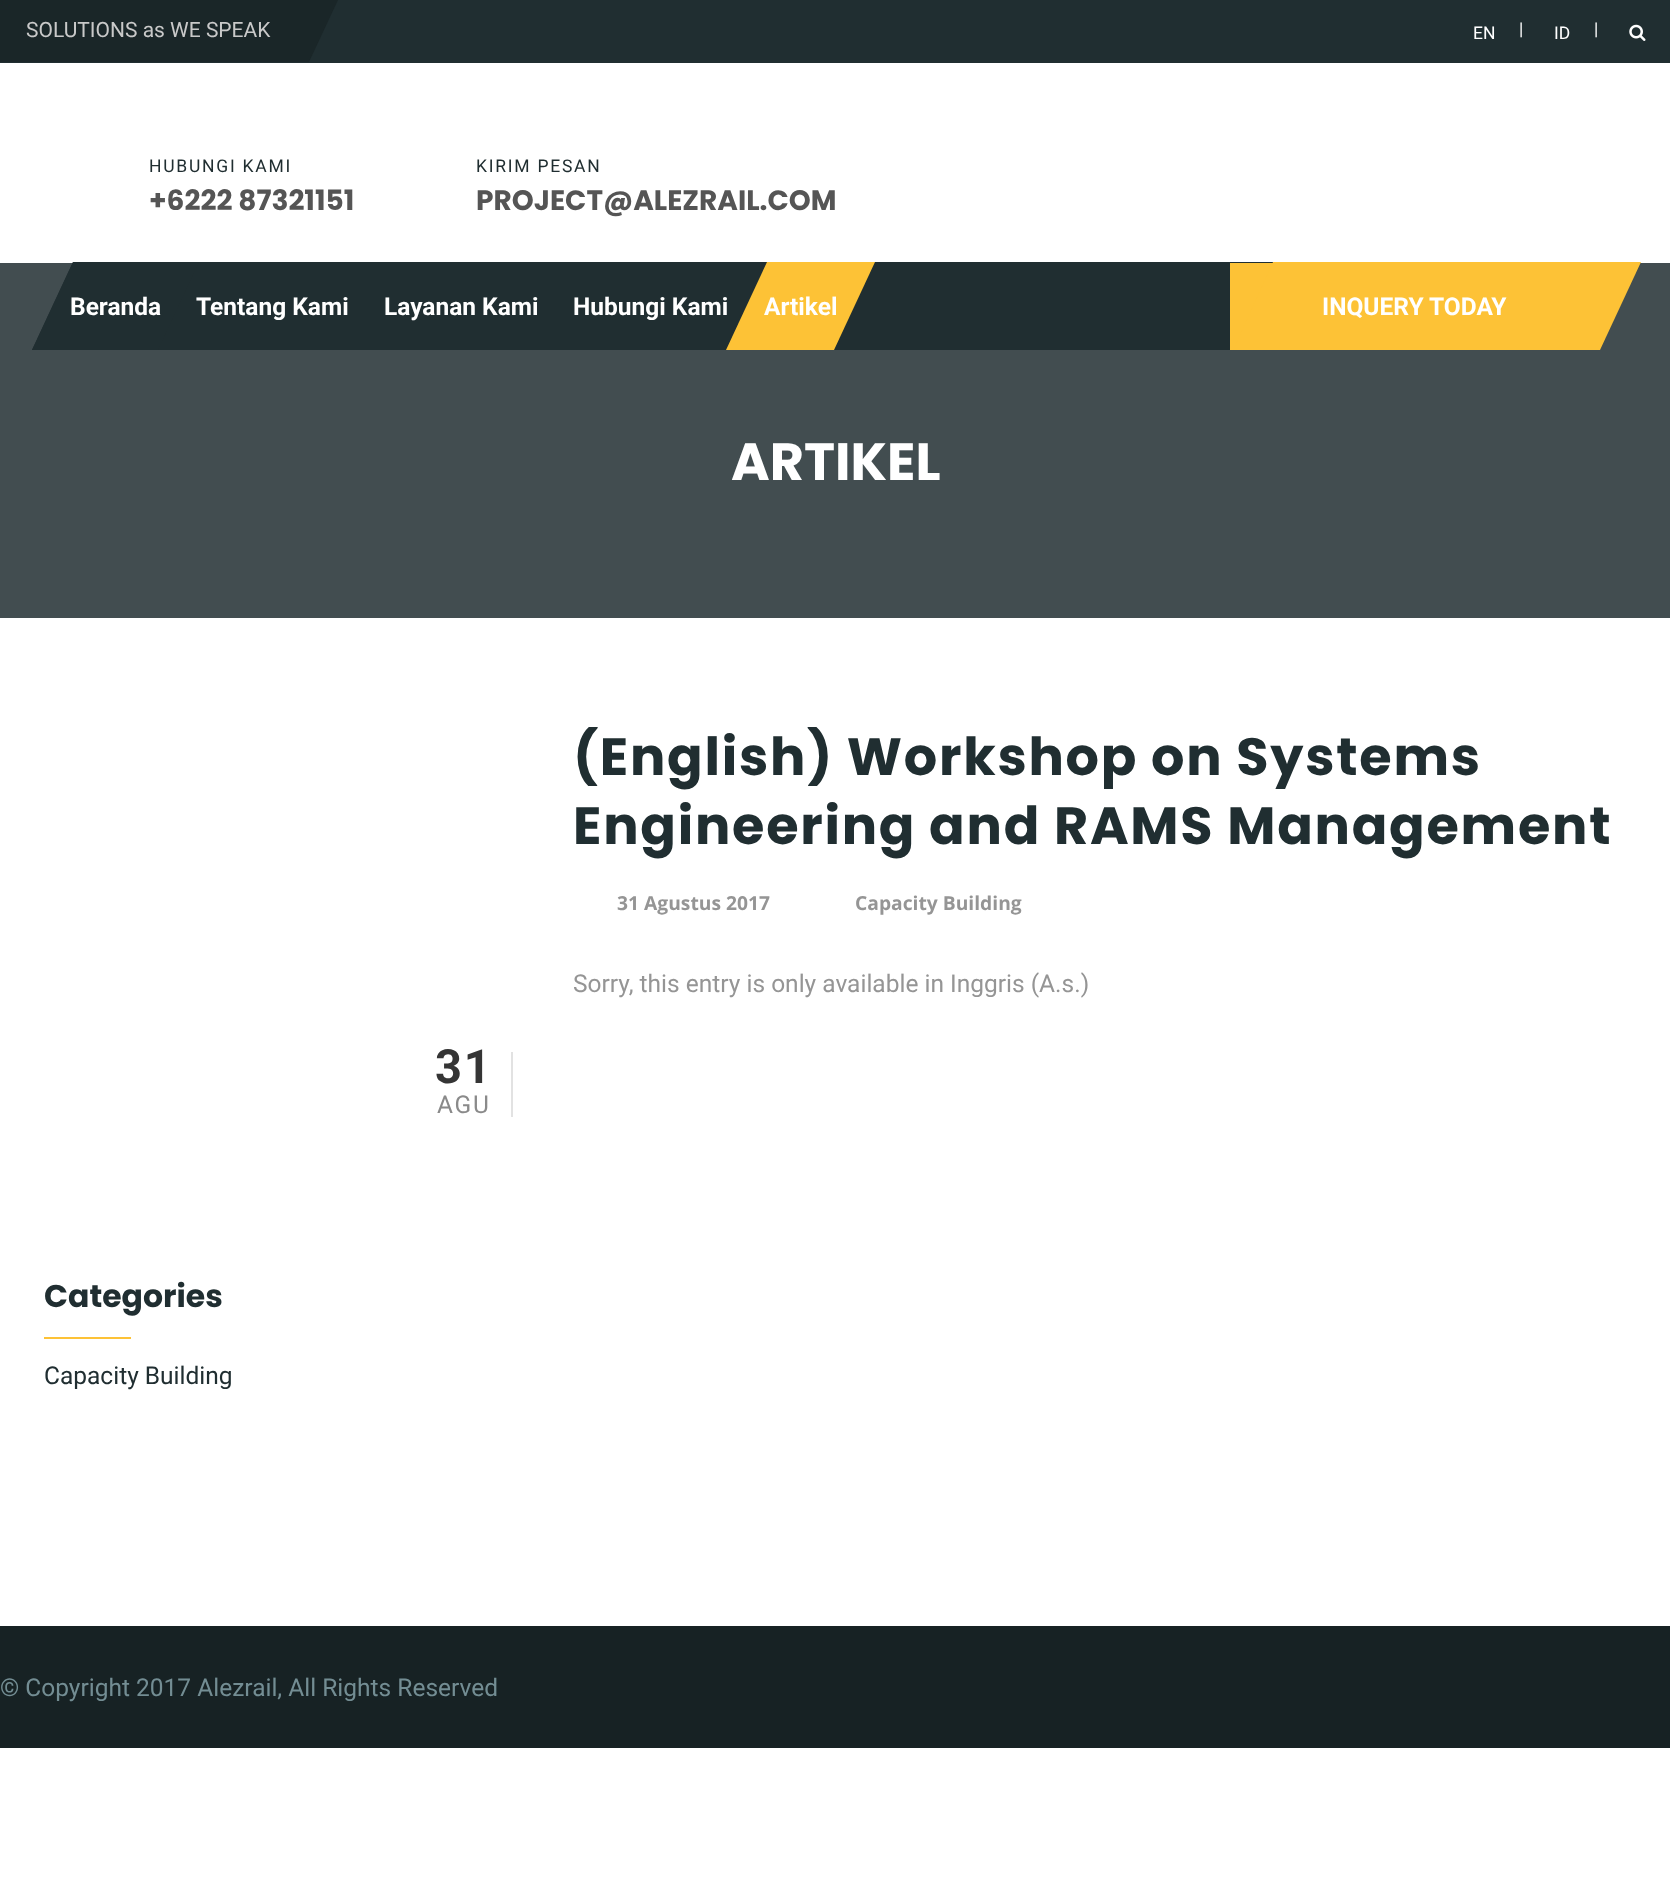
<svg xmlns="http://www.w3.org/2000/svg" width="1670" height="1896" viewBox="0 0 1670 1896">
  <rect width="100%" height="100%" fill="rgb(255,255,255)"/>
  <rect x="0" y="0" width="1670" height="63" fill="rgb(32,46,49)"/>
  <path d="M-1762 0H338L309 62H-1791Z" fill="rgb(26,38,40)"/>
  <text x="26" y="37" font-family="Roboto" font-size="21" fill="rgb(201,201,201)">SOLUTIONS as WE SPEAK</text>
  <g font-family="Roboto" font-size="17.5" fill="rgb(255,255,255)">
    <text x="1473" y="39">EN</text>
    <text x="1519" y="35">|</text>
    <text x="1554" y="39">ID</text>
    <text x="1594" y="35">|</text>
  </g>
  <image x="1629" y="24" width="17" height="17" href="pic1.png"/>
  <text x="149" y="172" font-family="Roboto" font-size="17.5" letter-spacing="1.75" fill="rgb(32,46,49)">HUBUNGI KAMI</text>
  <text x="149" y="210" font-family="Poppins" font-size="28" font-weight="bold" fill="rgb(85,85,85)">+6222 87321151</text>
  <text x="476" y="172" font-family="Roboto" font-size="17.5" letter-spacing="1.75" fill="rgb(32,46,49)">KIRIM PESAN</text>
  <text x="476" y="210" font-family="Poppins" font-size="28" font-weight="bold" fill="rgb(85,85,85)">PROJECT@ALEZRAIL.COM</text>
  <rect x="0" y="263" width="1670" height="355" fill="rgb(66,77,80)"/>
  <path d="M73 262H1639L1598 350H32Z" fill="rgb(32,46,49)"/>
  <path d="M73 262H199L158 350H32Z" fill="rgb(32,46,49)"/>
  <g font-family="Roboto" font-size="24.5" font-weight="bold" fill="rgb(255,255,255)">
    <text x="70" y="315">Beranda</text>
    <text x="196" y="315">Tentang Kami</text>
    <text x="384" y="315">Layanan Kami</text>
    <text x="573" y="315">Hubungi Kami</text>
  </g>
  <path d="M767 262H875L834 350H726Z" fill="rgb(253,194,54)"/>
  <text x="764" y="315" font-family="Roboto" font-size="24.5" font-weight="bold" fill="rgb(255,255,255)">Artikel</text>
  <rect x="1230" y="263" width="43" height="87" fill="rgb(253,194,54)"/>
  <path d="M1273 262H1641L1600 350H1233Z" fill="rgb(253,194,54)"/>
  <text x="1322" y="315" font-family="Roboto" font-size="24.5" font-weight="bold" fill="rgb(255,255,255)">INQUERY TODAY</text>
  <text x="731" y="480" font-family="Poppins" font-size="52.5" font-weight="bold" fill="rgb(255,255,255)">ARTIKEL</text>
  <g font-family="Poppins" font-size="52.5" font-weight="bold" letter-spacing="1.75" fill="rgb(32,46,49)">
    <text>
      <tspan x="573" y="775">(English) Workshop on Systems</tspan>
      <tspan x="573" y="844">Engineering and RAMS Management</tspan>
    </text>
  </g>
  <g font-family="Open Sans" font-size="19.25" font-weight="bold" fill="rgb(149,149,149)">
    <text x="617" y="910">31 Agustus 2017</text>
    <text x="855" y="910">Capacity Building</text>
  </g>
  <text x="573" y="992" font-family="Roboto" font-size="24.5" fill="rgb(149,149,149)">Sorry, this entry is only available in Inggris (A.s.)</text>
  <rect x="511" y="1052" width="2" height="65" fill="rgb(226,226,226)"/>
  <text x="435" y="1083" font-family="Roboto" font-size="47" font-weight="bold" letter-spacing="1.75" fill="rgb(53,53,53)">31</text>
  <text x="437" y="1113" font-family="Roboto" font-size="24.5" letter-spacing="1.75" fill="rgb(138,138,138)">AGU</text>
  <text x="44" y="1307" font-family="Poppins" font-size="31.5" font-weight="bold" fill="rgb(32,46,49)">Categories</text>
  <rect x="44" y="1337" width="87" height="2" fill="rgb(253,194,54)"/>
  <text x="44" y="1384" font-family="Roboto" font-size="24.5" fill="rgb(32,46,49)">Capacity Building</text>
  <rect x="0" y="1626" width="1670" height="122" fill="rgb(23,34,36)"/>
  <text x="0" y="1696" font-family="Roboto" font-size="24.5" fill="rgb(115,141,147)">© Copyright 2017 Alezrail, All Rights Reserved</text>
</svg>
